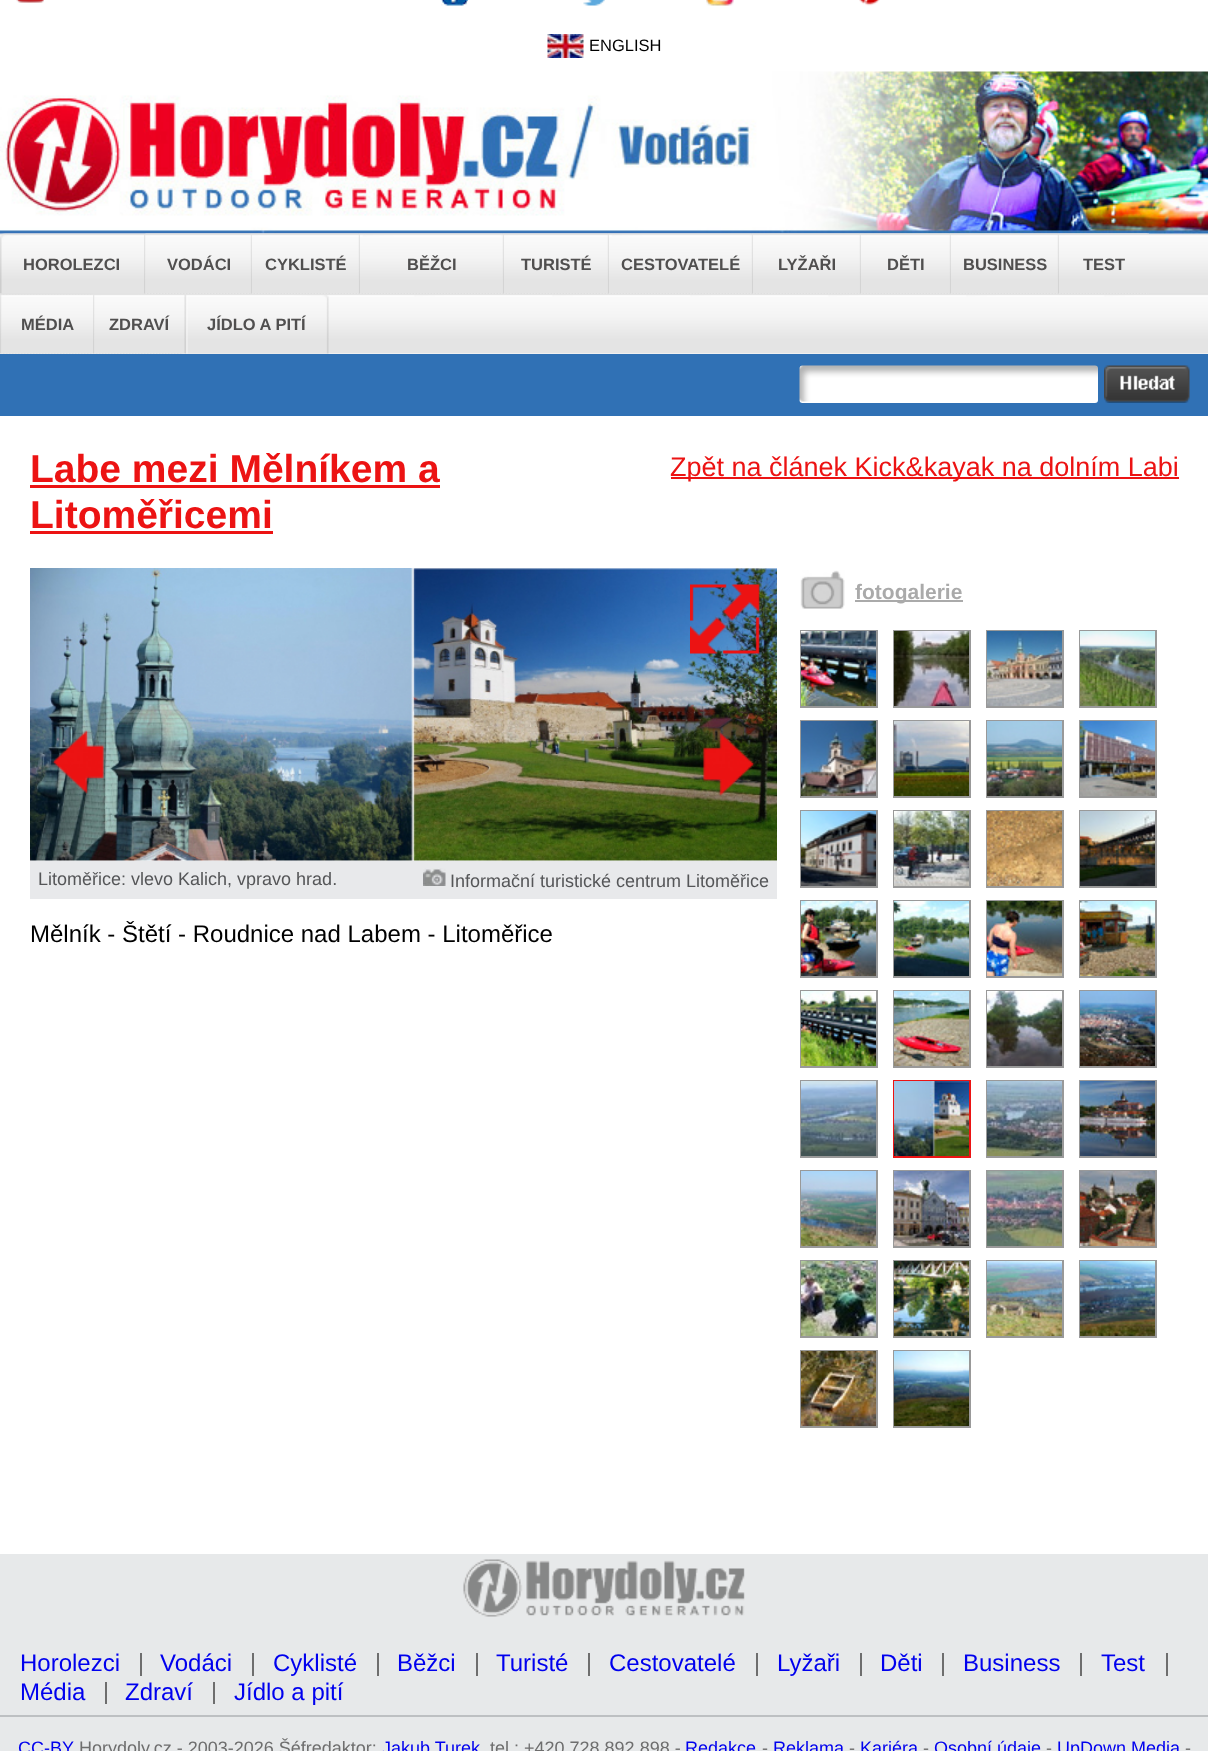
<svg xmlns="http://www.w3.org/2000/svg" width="1208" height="1751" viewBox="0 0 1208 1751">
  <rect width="100%" height="100%" fill="rgb(231,233,234)"/>
  <rect x="0" y="0" width="1208" height="1554" fill="rgb(255,255,255)"/>
  <image x="16" y="0" width="28" height="3" href="pic1.png"/>
  <image x="441" y="0" width="27" height="6" href="pic2.png"/>
  <image x="583" y="0" width="22" height="6" href="pic3.png"/>
  <image x="706" y="0" width="28" height="6" href="pic4.png"/>
  <image x="859" y="0" width="21" height="6" href="pic5.png"/>
  <image x="547" y="34" width="37" height="24" href="pic6.png"/>
  <text x="589" y="51" font-family="Liberation Sans" font-size="16.5" fill="rgb(0,0,0)">ENGLISH</text>
  <image x="0" y="233" width="1208" height="121" href="pic8.png"/>
  <image x="0" y="71" width="1208" height="163" href="pic7.png"/>
  <image x="0" y="233" width="144" height="61" href="pic9.png"/>
  <text x="23" y="270" font-family="Liberation Sans" font-size="16.5" font-weight="bold" fill="rgb(80,79,79)">HOROLEZCI</text>
  <image x="144" y="233" width="107" height="61" href="pic10.png"/>
  <image x="145" y="233" width="107" height="61" href="pic11.png"/>
  <text x="167" y="270" font-family="Liberation Sans" font-size="16.5" font-weight="bold" fill="rgb(80,79,79)">VODÁCI</text>
  <image x="250" y="233" width="109" height="61" href="pic12.png"/>
  <image x="252" y="233" width="108" height="61" href="pic13.png"/>
  <text x="265" y="270" font-family="Liberation Sans" font-size="16.5" font-weight="bold" fill="rgb(80,79,79)">CYKLISTÉ</text>
  <image x="358" y="233" width="145" height="61" href="pic14.png"/>
  <image x="360" y="233" width="144" height="61" href="pic15.png"/>
  <text x="407" y="270" font-family="Liberation Sans" font-size="16.5" font-weight="bold" fill="rgb(80,79,79)">BĚŽCI</text>
  <image x="502" y="233" width="106" height="61" href="pic16.png"/>
  <image x="504" y="233" width="105" height="61" href="pic17.png"/>
  <text x="521" y="270" font-family="Liberation Sans" font-size="16.5" font-weight="bold" fill="rgb(80,79,79)">TURISTÉ</text>
  <image x="607" y="233" width="145" height="61" href="pic18.png"/>
  <image x="609" y="233" width="144" height="61" href="pic19.png"/>
  <text x="621" y="270" font-family="Liberation Sans" font-size="16.5" font-weight="bold" fill="rgb(80,79,79)">CESTOVATELÉ</text>
  <image x="751" y="233" width="109" height="61" href="pic20.png"/>
  <image x="753" y="233" width="108" height="61" href="pic21.png"/>
  <text x="778" y="270" font-family="Liberation Sans" font-size="16.5" font-weight="bold" fill="rgb(80,79,79)">LYŽAŘI</text>
  <image x="859" y="233" width="91" height="61" href="pic22.png"/>
  <image x="861" y="233" width="90" height="61" href="pic23.png"/>
  <text x="887" y="270" font-family="Liberation Sans" font-size="16.5" font-weight="bold" fill="rgb(80,79,79)">DĚTI</text>
  <image x="949" y="233" width="109" height="61" href="pic24.png"/>
  <image x="951" y="233" width="108" height="61" href="pic25.png"/>
  <text x="963" y="270" font-family="Liberation Sans" font-size="16.5" font-weight="bold" fill="rgb(80,79,79)">BUSINESS</text>
  <image x="1057" y="233" width="91" height="61" href="pic26.png"/>
  <image x="1059" y="233" width="90" height="61" href="pic27.png"/>
  <text x="1083" y="270" font-family="Liberation Sans" font-size="16.5" font-weight="bold" fill="rgb(80,79,79)">TEST</text>
  <image x="0" y="293" width="93" height="61" href="pic28.png"/>
  <image x="1" y="295" width="93" height="59" href="pic29.png"/>
  <text x="21" y="330" font-family="Liberation Sans" font-size="16.5" font-weight="bold" fill="rgb(80,79,79)">MÉDIA</text>
  <image x="93" y="295" width="90" height="59" href="pic30.png"/>
  <image x="94" y="295" width="90" height="59" href="pic31.png"/>
  <text x="109" y="330" font-family="Liberation Sans" font-size="16.5" font-weight="bold" fill="rgb(80,79,79)">ZDRAVÍ</text>
  <image x="184" y="295" width="145" height="59" href="pic32.png"/>
  <text x="207" y="330" font-family="Liberation Sans" font-size="16.5" font-weight="bold" fill="rgb(80,79,79)">JÍDLO A PITÍ</text>
  <rect x="0" y="354" width="1208" height="62" fill="rgb(48,113,181)"/>
  <image x="799" y="365" width="299" height="38" href="pic33.png"/>
  <image x="1104" y="365" width="86" height="38" href="pic34.png"/>
  <text x="30" y="482" font-family="Liberation Sans" font-size="39" font-weight="bold" fill="rgb(236,19,19)">Labe mezi Mělníkem a</text>
  <rect x="30" y="485" width="410" height="3" fill="rgb(236,19,19)"/>
  <text x="30" y="528" font-family="Liberation Sans" font-size="39" font-weight="bold" fill="rgb(236,19,19)">Litoměřicemi</text>
  <rect x="30" y="531" width="243" height="3" fill="rgb(236,19,19)"/>
  <rect x="671" y="477" width="508" height="2" fill="rgb(236,19,19)"/>
  <text x="670" y="476" font-family="Liberation Sans" font-size="27" fill="rgb(236,19,19)">Zpět na článek Kick&amp;kayak na dolním Labi</text>
  <image x="800" y="570" width="45" height="39" href="pic35.png"/>
  <rect x="855" y="600" width="108" height="2" fill="rgb(170,170,170)"/>
  <text x="855" y="599" font-family="Liberation Sans" font-size="21" font-weight="bold" fill="rgb(170,170,170)">fotogalerie</text>
  <rect x="801" y="631" width="76" height="76" fill="none" stroke="rgb(153,153,153)" stroke-width="2"/>
  <image x="801" y="631" width="75" height="75" href="pic36.png"/>
  <rect x="894" y="631" width="76" height="76" fill="none" stroke="rgb(153,153,153)" stroke-width="2"/>
  <image x="894" y="631" width="75" height="75" href="pic37.png"/>
  <rect x="987" y="631" width="76" height="76" fill="none" stroke="rgb(153,153,153)" stroke-width="2"/>
  <image x="987" y="631" width="75" height="75" href="pic38.png"/>
  <rect x="1080" y="631" width="76" height="76" fill="none" stroke="rgb(153,153,153)" stroke-width="2"/>
  <image x="1080" y="631" width="75" height="75" href="pic39.png"/>
  <rect x="801" y="721" width="76" height="76" fill="none" stroke="rgb(153,153,153)" stroke-width="2"/>
  <image x="801" y="721" width="75" height="75" href="pic40.png"/>
  <rect x="894" y="721" width="76" height="76" fill="none" stroke="rgb(153,153,153)" stroke-width="2"/>
  <image x="894" y="721" width="75" height="75" href="pic41.png"/>
  <rect x="987" y="721" width="76" height="76" fill="none" stroke="rgb(153,153,153)" stroke-width="2"/>
  <image x="987" y="721" width="75" height="75" href="pic42.png"/>
  <rect x="1080" y="721" width="76" height="76" fill="none" stroke="rgb(153,153,153)" stroke-width="2"/>
  <image x="1080" y="721" width="75" height="75" href="pic43.png"/>
  <rect x="801" y="811" width="76" height="76" fill="none" stroke="rgb(153,153,153)" stroke-width="2"/>
  <image x="801" y="811" width="75" height="75" href="pic44.png"/>
  <rect x="894" y="811" width="76" height="76" fill="none" stroke="rgb(153,153,153)" stroke-width="2"/>
  <image x="894" y="811" width="75" height="75" href="pic45.png"/>
  <rect x="987" y="811" width="76" height="76" fill="none" stroke="rgb(153,153,153)" stroke-width="2"/>
  <image x="987" y="811" width="75" height="75" href="pic46.png"/>
  <rect x="1080" y="811" width="76" height="76" fill="none" stroke="rgb(153,153,153)" stroke-width="2"/>
  <image x="1080" y="811" width="75" height="75" href="pic47.png"/>
  <rect x="801" y="901" width="76" height="76" fill="none" stroke="rgb(153,153,153)" stroke-width="2"/>
  <image x="801" y="901" width="75" height="75" href="pic48.png"/>
  <rect x="894" y="901" width="76" height="76" fill="none" stroke="rgb(153,153,153)" stroke-width="2"/>
  <image x="894" y="901" width="75" height="75" href="pic49.png"/>
  <rect x="987" y="901" width="76" height="76" fill="none" stroke="rgb(153,153,153)" stroke-width="2"/>
  <image x="987" y="901" width="75" height="75" href="pic50.png"/>
  <rect x="1080" y="901" width="76" height="76" fill="none" stroke="rgb(153,153,153)" stroke-width="2"/>
  <image x="1080" y="901" width="75" height="75" href="pic51.png"/>
  <rect x="801" y="991" width="76" height="76" fill="none" stroke="rgb(153,153,153)" stroke-width="2"/>
  <image x="801" y="991" width="75" height="75" href="pic52.png"/>
  <rect x="894" y="991" width="76" height="76" fill="none" stroke="rgb(153,153,153)" stroke-width="2"/>
  <image x="894" y="991" width="75" height="75" href="pic53.png"/>
  <rect x="987" y="991" width="76" height="76" fill="none" stroke="rgb(153,153,153)" stroke-width="2"/>
  <image x="987" y="991" width="75" height="75" href="pic54.png"/>
  <rect x="1080" y="991" width="76" height="76" fill="none" stroke="rgb(153,153,153)" stroke-width="2"/>
  <image x="1080" y="991" width="75" height="75" href="pic55.png"/>
  <rect x="801" y="1081" width="76" height="76" fill="none" stroke="rgb(153,153,153)" stroke-width="2"/>
  <image x="801" y="1081" width="75" height="75" href="pic56.png"/>
  <rect x="894" y="1081" width="76" height="76" fill="none" stroke="rgb(236,19,19)" stroke-width="2"/>
  <image x="894" y="1081" width="75" height="75" href="pic57.png"/>
  <rect x="987" y="1081" width="76" height="76" fill="none" stroke="rgb(153,153,153)" stroke-width="2"/>
  <image x="987" y="1081" width="75" height="75" href="pic58.png"/>
  <rect x="1080" y="1081" width="76" height="76" fill="none" stroke="rgb(153,153,153)" stroke-width="2"/>
  <image x="1080" y="1081" width="75" height="75" href="pic59.png"/>
  <rect x="801" y="1171" width="76" height="76" fill="none" stroke="rgb(153,153,153)" stroke-width="2"/>
  <image x="801" y="1171" width="75" height="75" href="pic60.png"/>
  <rect x="894" y="1171" width="76" height="76" fill="none" stroke="rgb(153,153,153)" stroke-width="2"/>
  <image x="894" y="1171" width="75" height="75" href="pic61.png"/>
  <rect x="987" y="1171" width="76" height="76" fill="none" stroke="rgb(153,153,153)" stroke-width="2"/>
  <image x="987" y="1171" width="75" height="75" href="pic62.png"/>
  <rect x="1080" y="1171" width="76" height="76" fill="none" stroke="rgb(153,153,153)" stroke-width="2"/>
  <image x="1080" y="1171" width="75" height="75" href="pic63.png"/>
  <rect x="801" y="1261" width="76" height="76" fill="none" stroke="rgb(153,153,153)" stroke-width="2"/>
  <image x="801" y="1261" width="75" height="75" href="pic64.png"/>
  <rect x="894" y="1261" width="76" height="76" fill="none" stroke="rgb(153,153,153)" stroke-width="2"/>
  <image x="894" y="1261" width="75" height="75" href="pic65.png"/>
  <rect x="987" y="1261" width="76" height="76" fill="none" stroke="rgb(153,153,153)" stroke-width="2"/>
  <image x="987" y="1261" width="75" height="75" href="pic66.png"/>
  <rect x="1080" y="1261" width="76" height="76" fill="none" stroke="rgb(153,153,153)" stroke-width="2"/>
  <image x="1080" y="1261" width="75" height="75" href="pic67.png"/>
  <rect x="801" y="1351" width="76" height="76" fill="none" stroke="rgb(153,153,153)" stroke-width="2"/>
  <image x="801" y="1351" width="75" height="75" href="pic68.png"/>
  <rect x="894" y="1351" width="76" height="76" fill="none" stroke="rgb(153,153,153)" stroke-width="2"/>
  <image x="894" y="1351" width="75" height="75" href="pic69.png"/>
  <image x="30" y="568" width="747" height="293" href="pic70.png"/>
  <image x="690" y="584" width="71" height="70" href="pic71.png"/>
  <image x="52" y="729" width="53" height="65" href="pic72.png"/>
  <image x="702" y="732" width="53" height="64" href="pic73.png"/>
  <rect x="30" y="861" width="747" height="38" fill="rgb(232,233,235)"/>
  <text x="38" y="885" font-family="Liberation Sans" font-size="18" fill="rgb(85,86,88)">Litoměřice: vlevo Kalich, vpravo hrad.</text>
  <image x="423" y="868" width="23" height="18" href="pic74.png"/>
  <text x="450" y="887" font-family="Liberation Sans" font-size="18" fill="rgb(85,86,88)">Informační turistické centrum Litoměřice</text>
  <text x="30" y="942" font-family="Liberation Sans" font-size="24" fill="rgb(0,0,0)">Mělník - Štětí - Roudnice nad Labem - Litoměřice</text>
  <image x="463" y="1559" width="282" height="58" href="pic75.png"/>
  <rect x="140" y="1653" width="2" height="23" fill="rgb(110,110,110)"/>
  <text x="20" y="1671" font-family="Liberation Sans" font-size="24" fill="rgb(0,0,238)">Horolezci</text>
  <rect x="252" y="1653" width="2" height="23" fill="rgb(110,110,110)"/>
  <text x="160" y="1671" font-family="Liberation Sans" font-size="24" fill="rgb(0,0,238)">Vodáci</text>
  <rect x="377" y="1653" width="2" height="23" fill="rgb(110,110,110)"/>
  <text x="273" y="1671" font-family="Liberation Sans" font-size="24" fill="rgb(0,0,238)">Cyklisté</text>
  <rect x="476" y="1653" width="2" height="23" fill="rgb(110,110,110)"/>
  <text x="397" y="1671" font-family="Liberation Sans" font-size="24" fill="rgb(0,0,238)">Běžci</text>
  <rect x="588" y="1653" width="2" height="23" fill="rgb(110,110,110)"/>
  <text x="496" y="1671" font-family="Liberation Sans" font-size="24" fill="rgb(0,0,238)">Turisté</text>
  <rect x="756" y="1653" width="2" height="23" fill="rgb(110,110,110)"/>
  <text x="609" y="1671" font-family="Liberation Sans" font-size="24" fill="rgb(0,0,238)">Cestovatelé</text>
  <rect x="860" y="1653" width="2" height="23" fill="rgb(110,110,110)"/>
  <text x="777" y="1671" font-family="Liberation Sans" font-size="24" fill="rgb(0,0,238)">Lyžaři</text>
  <rect x="942" y="1653" width="2" height="23" fill="rgb(110,110,110)"/>
  <text x="880" y="1671" font-family="Liberation Sans" font-size="24" fill="rgb(0,0,238)">Děti</text>
  <rect x="1080" y="1653" width="2" height="23" fill="rgb(110,110,110)"/>
  <text x="963" y="1671" font-family="Liberation Sans" font-size="24" fill="rgb(0,0,238)">Business</text>
  <rect x="1166" y="1653" width="2" height="23" fill="rgb(110,110,110)"/>
  <text x="1101" y="1671" font-family="Liberation Sans" font-size="24" fill="rgb(0,0,238)">Test</text>
  <rect x="105" y="1682" width="2" height="22" fill="rgb(110,110,110)"/>
  <text x="20" y="1700" font-family="Liberation Sans" font-size="24" fill="rgb(0,0,238)">Média</text>
  <rect x="213" y="1682" width="2" height="22" fill="rgb(110,110,110)"/>
  <g font-family="Liberation Sans" font-size="24" fill="rgb(0,0,238)">
    <text x="125" y="1700">Zdraví</text>
    <text x="234" y="1700">Jídlo a pití</text>
  </g>
  <rect x="0" y="1715" width="1208" height="2" fill="rgb(189,192,194)"/>
  <text x="18" y="1754" font-family="Liberation Sans" font-size="18" fill="rgb(0,0,238)">CC-BY</text>
  <text x="79" y="1754" font-family="Liberation Sans" font-size="18" fill="rgb(110,110,110)">Horydoly.cz - 2003-2026 Šéfredaktor:</text>
  <text x="382" y="1754" font-family="Liberation Sans" font-size="18" fill="rgb(0,0,238)">Jakub Turek</text>
  <text x="490" y="1754" font-family="Liberation Sans" font-size="18" fill="rgb(110,110,110)">tel.: +420 728 892 898 -</text>
  <text x="685" y="1754" font-family="Liberation Sans" font-size="18" fill="rgb(0,0,238)">Redakce</text>
  <text x="762" y="1754" font-family="Liberation Sans" font-size="18" fill="rgb(110,110,110)">-</text>
  <text x="773" y="1754" font-family="Liberation Sans" font-size="18" fill="rgb(0,0,238)">Reklama</text>
  <text x="849" y="1754" font-family="Liberation Sans" font-size="18" fill="rgb(110,110,110)">-</text>
  <text x="860" y="1754" font-family="Liberation Sans" font-size="18" fill="rgb(0,0,238)">Kariéra</text>
  <text x="923" y="1754" font-family="Liberation Sans" font-size="18" fill="rgb(110,110,110)">-</text>
  <text x="934" y="1754" font-family="Liberation Sans" font-size="18" fill="rgb(0,0,238)">Osobní údaje</text>
  <text x="1046" y="1754" font-family="Liberation Sans" font-size="18" fill="rgb(110,110,110)">-</text>
  <text x="1057" y="1754" font-family="Liberation Sans" font-size="18" fill="rgb(0,0,238)">UpDown Media</text>
  <text x="1185" y="1754" font-family="Liberation Sans" font-size="18" fill="rgb(110,110,110)">-</text>
</svg>
